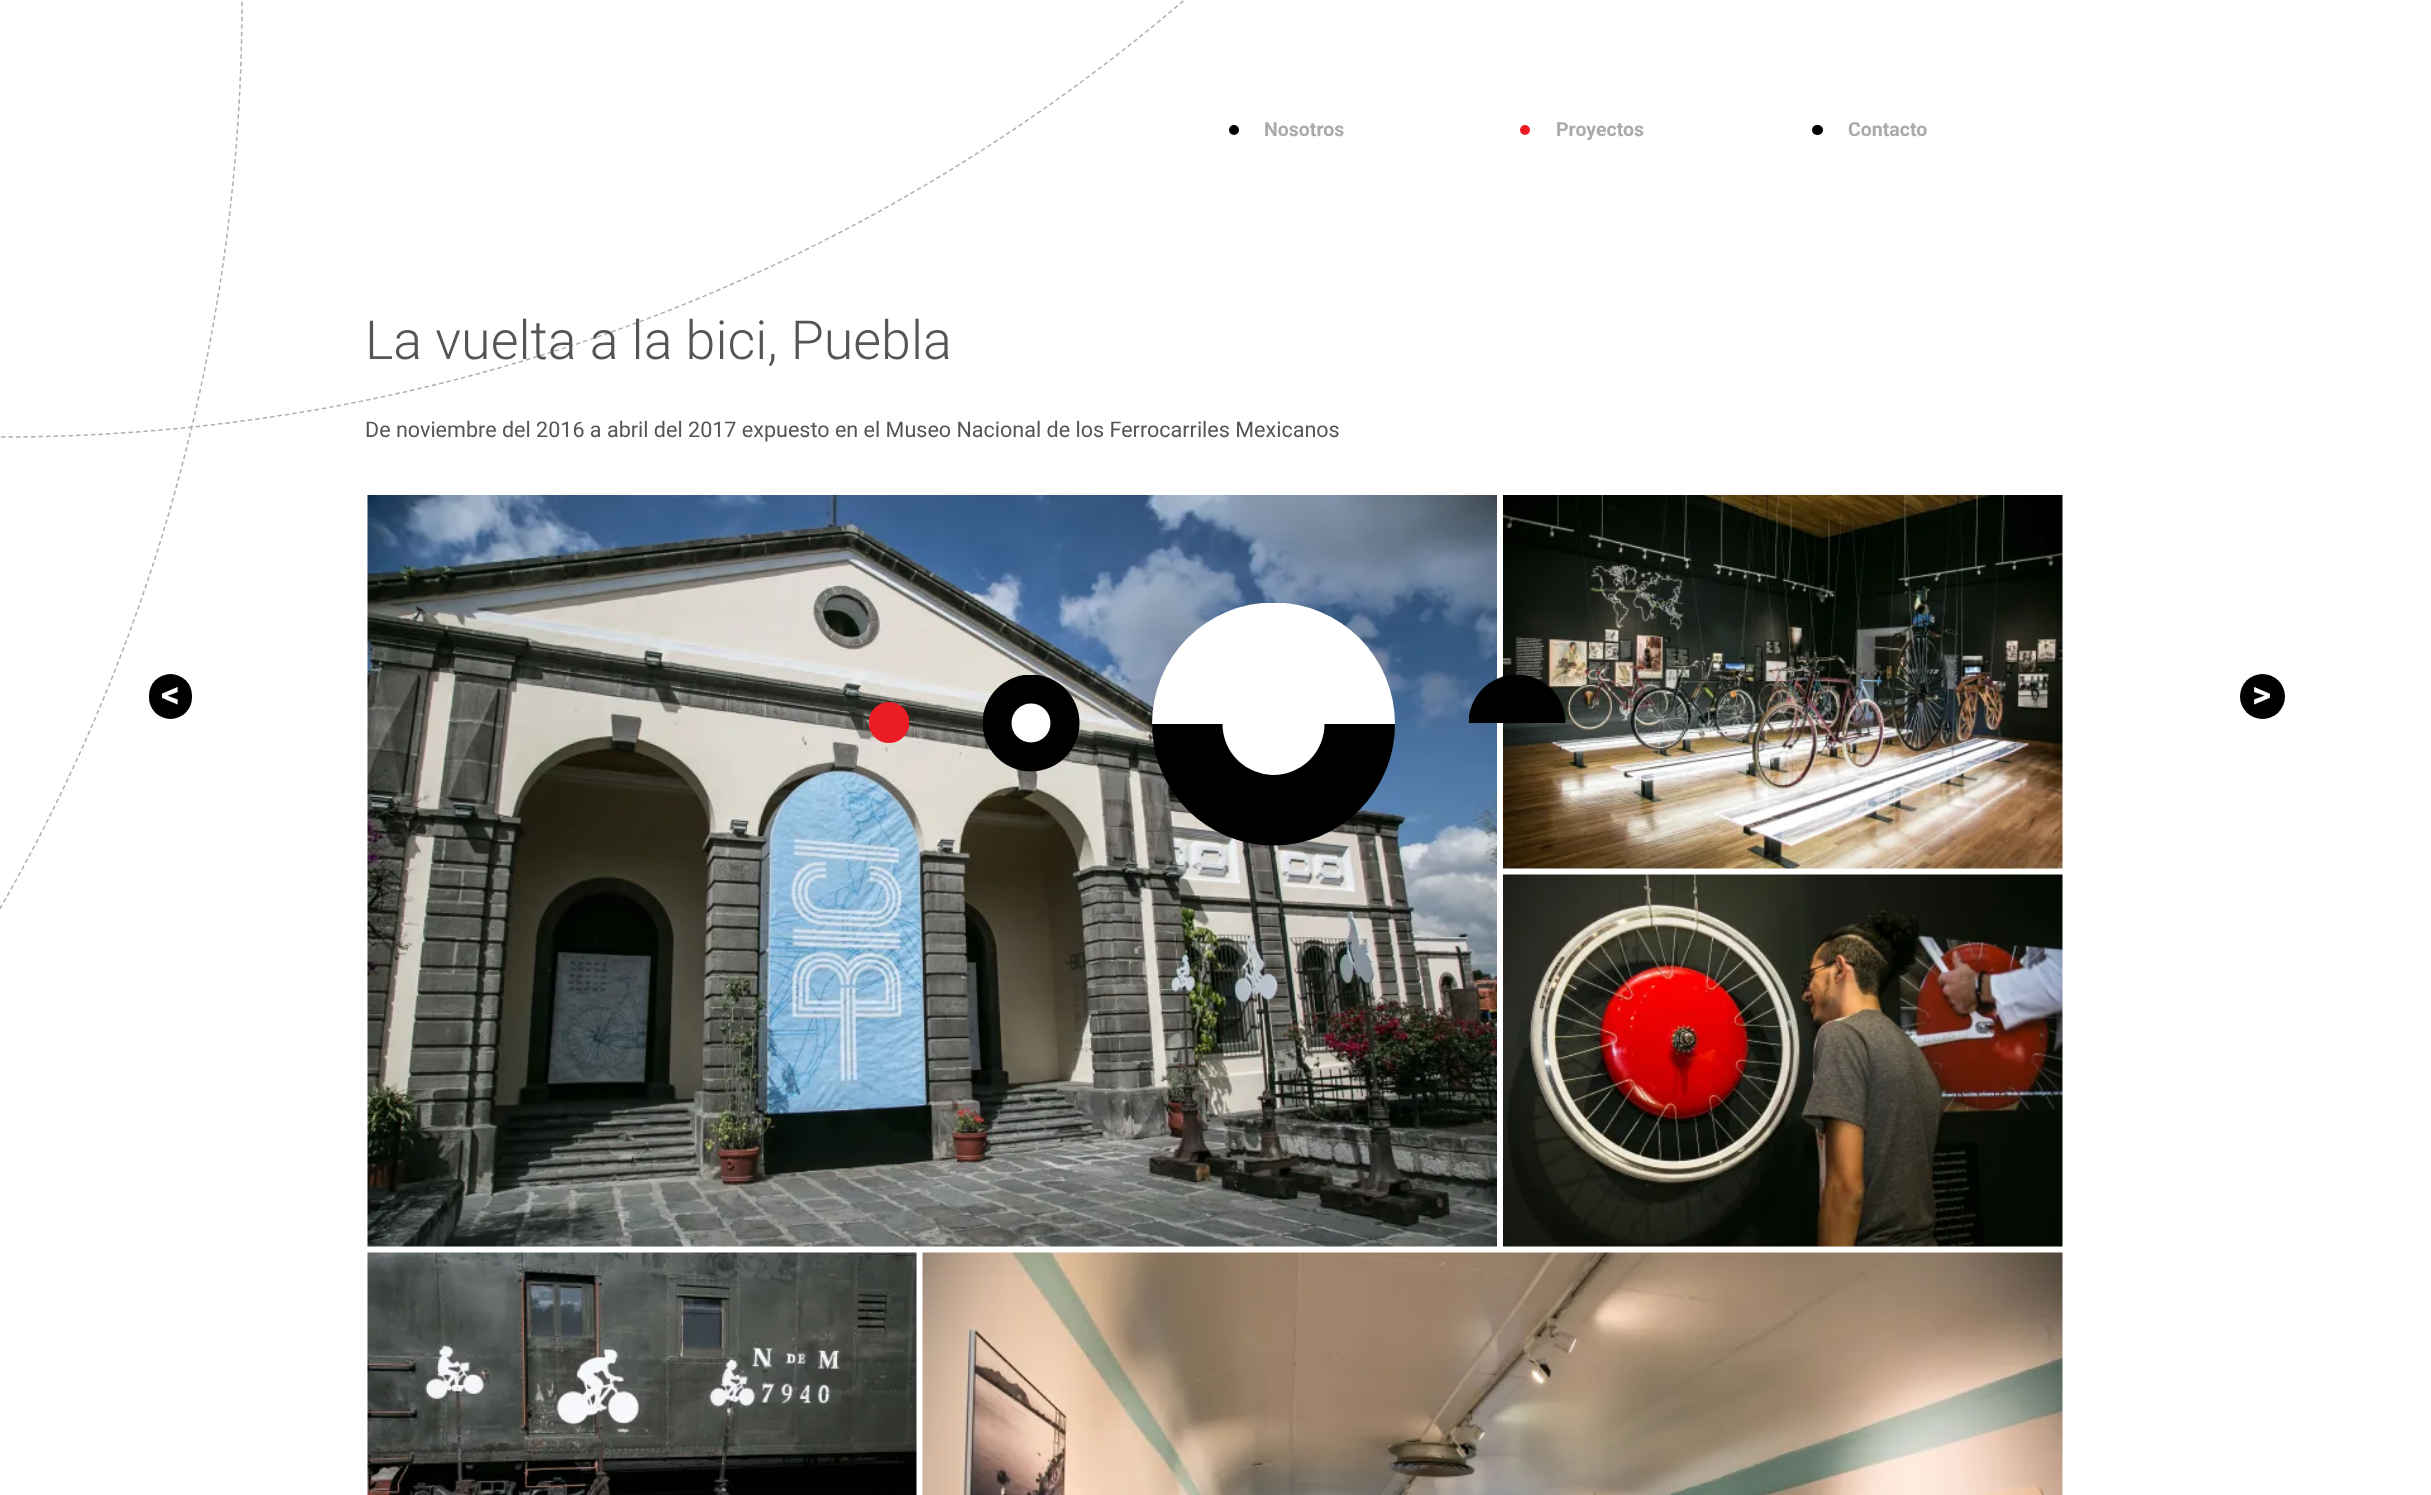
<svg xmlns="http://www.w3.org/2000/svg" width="2431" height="1495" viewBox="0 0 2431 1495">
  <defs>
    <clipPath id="clip1"><rect x="869" y="702" width="40" height="42"/></clipPath>
    <clipPath id="clip2"><rect x="983" y="675" width="97" height="98"/></clipPath>
    <clipPath id="clip3"><rect x="1152" y="603" width="243" height="124"/></clipPath>
    <clipPath id="clip4"><rect x="1152" y="724" width="243" height="122"/></clipPath>
    <clipPath id="clip5"><rect x="1469" y="675" width="97" height="48"/></clipPath>
  </defs>
  <rect width="100%" height="100%" fill="rgb(255,255,255)"/>
  <path d="M0-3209C1007-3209 1823-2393 1823-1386C1823-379 1007 437 0 437C-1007 437-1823-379-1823-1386C-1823-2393-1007-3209 0-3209Z" fill="none" stroke="rgb(176,174,175)" stroke-width="1.5" stroke-dasharray="4.5 3"/>
  <path d="M-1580-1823C-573.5-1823 242-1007 242 0C242 1007-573.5 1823-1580 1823C-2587 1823-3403 1007-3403 0C-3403-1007-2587-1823-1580-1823Z" fill="none" stroke="rgb(176,174,175)" stroke-width="1.5" stroke-dasharray="4.5 3"/>
  <circle cx="1234" cy="130" r="5" fill="rgb(0,0,0)"/>
  <text x="1264" y="136" font-family="Roboto" font-size="19.5" font-weight="bold" fill="rgb(170,170,170)">Nosotros</text>
  <circle cx="1525" cy="130" r="5" fill="rgb(236,28,36)"/>
  <text x="1556" y="136" font-family="Roboto" font-size="19.5" font-weight="bold" fill="rgb(170,170,170)">Proyectos</text>
  <rect x="1812" y="125" width="11" height="10" rx="5" fill="rgb(0,0,0)"/>
  <text x="1848" y="136" font-family="Roboto" font-size="19.5" font-weight="bold" fill="rgb(170,170,170)">Contacto</text>
  <text x="365" y="359" font-family="Roboto" font-size="53.75" font-weight="300" fill="rgb(85,85,85)">La vuelta a la bici, Puebla</text>
  <text x="365" y="437" font-family="Roboto" font-size="21.55" fill="rgb(85,85,85)">De noviembre del 2016 a abril del 2017 expuesto en el Museo Nacional de los Ferrocarriles Mexicanos</text>
  <image x="367" y="495" width="1130" height="752" href="pic1.png"/>
  <image x="1503" y="495" width="560" height="374" href="pic2.png"/>
  <image x="1503" y="874" width="560" height="373" href="pic3.png"/>
  <image x="367" y="1252" width="550" height="243" href="pic4.png"/>
  <image x="922" y="1252" width="1141" height="243" href="pic5.png"/>
  <rect x="149" y="674" width="43" height="45" rx="21.5" fill="rgb(0,0,0)"/>
  <text x="161" y="707" font-family="Roboto" font-size="37" font-weight="bold" fill="rgb(255,255,255)">&lt;</text>
  <circle cx="2262.5" cy="696.5" r="22.5" fill="rgb(0,0,0)"/>
  <text x="2252" y="707" font-family="Roboto" font-size="37" font-weight="bold" fill="rgb(255,255,255)">&gt;</text>
  <g clip-path="url(#clip1)">
    <circle cx="889" cy="722.5" r="20.5" fill="rgb(236,28,36)"/>
  </g>
  <g clip-path="url(#clip2)">
    <circle cx="1031" cy="723" r="48.5" fill="rgb(0,0,0)"/>
  </g>
  <circle cx="1031" cy="723" r="19.5" fill="rgb(255,255,255)"/>
  <g clip-path="url(#clip3)">
    <circle cx="1273.5" cy="724" r="121.5" fill="rgb(255,255,255)"/>
  </g>
  <g clip-path="url(#clip4)">
    <circle cx="1273.5" cy="724" r="121.5" fill="rgb(0,0,0)"/>
  </g>
  <circle cx="1273.5" cy="724" r="51" fill="rgb(255,255,255)"/>
  <g clip-path="url(#clip5)">
    <circle cx="1517" cy="723" r="48.5" fill="rgb(0,0,0)"/>
  </g>
</svg>
